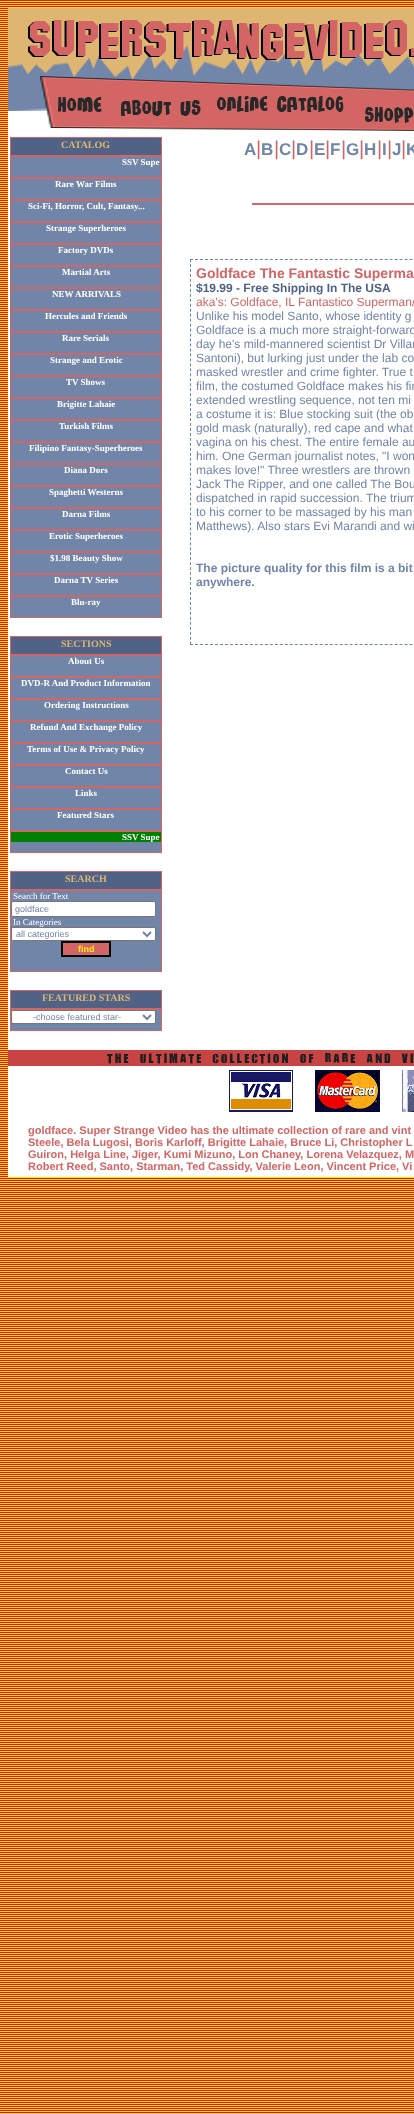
<svg xmlns="http://www.w3.org/2000/svg" width="414" height="2114" viewBox="0 0 414 2114">
  <rect width="100%" height="100%" fill="rgb(255,255,255)"/>
  <image x="0" y="0" width="414" height="2114" href="pic1.png"/>
  <rect x="8" y="129" width="406" height="1048" fill="rgb(255,255,255)"/>
  <image x="8" y="8" width="406" height="75" href="pic2.png"/>
  <image x="8" y="83" width="104" height="46" href="pic3.png"/>
  <image x="112" y="83" width="98" height="47" href="pic4.png"/>
  <image x="210" y="83" width="144" height="48" href="pic5.png"/>
  <image x="354" y="83" width="60" height="48" href="pic6.png"/>
  <rect x="10.5" y="137.5" width="151" height="18" fill="rgb(80,99,135)" stroke="rgb(212,101,101)"/>
  <text x="61" y="148" font-family="Liberation Serif" font-size="10" font-weight="bold" fill="rgb(222,182,113)">CATALOG</text>
  <rect x="10.5" y="156.5" width="151" height="21" fill="rgb(113,133,169)" stroke="rgb(212,101,101)"/>
  <text x="122" y="165" font-family="Liberation Serif" font-size="9" font-weight="bold" fill="rgb(255,255,255)">SSV Supe</text>
  <rect x="10.5" y="178.5" width="151" height="21" fill="rgb(113,133,169)" stroke="rgb(212,101,101)"/>
  <text x="55" y="187" font-family="Liberation Serif" font-size="9" font-weight="bold" fill="rgb(255,255,255)">Rare War Films</text>
  <rect x="10.5" y="200.5" width="151" height="21" fill="rgb(113,133,169)" stroke="rgb(212,101,101)"/>
  <text x="28" y="209" font-family="Liberation Serif" font-size="9" font-weight="bold" fill="rgb(255,255,255)">Sci-Fi, Horror, Cult, Fantasy...</text>
  <rect x="10.5" y="222.5" width="151" height="21" fill="rgb(113,133,169)" stroke="rgb(212,101,101)"/>
  <text x="46" y="231" font-family="Liberation Serif" font-size="9" font-weight="bold" fill="rgb(255,255,255)">Strange Superheroes</text>
  <rect x="10.5" y="244.5" width="151" height="21" fill="rgb(113,133,169)" stroke="rgb(212,101,101)"/>
  <text x="58" y="253" font-family="Liberation Serif" font-size="9" font-weight="bold" fill="rgb(255,255,255)">Factory DVDs</text>
  <rect x="10.5" y="266.5" width="151" height="21" fill="rgb(113,133,169)" stroke="rgb(212,101,101)"/>
  <text x="62" y="275" font-family="Liberation Serif" font-size="9" font-weight="bold" fill="rgb(255,255,255)">Martial Arts</text>
  <rect x="10.5" y="288.5" width="151" height="21" fill="rgb(113,133,169)" stroke="rgb(212,101,101)"/>
  <text x="52" y="297" font-family="Liberation Serif" font-size="9" font-weight="bold" fill="rgb(255,255,255)">NEW ARRIVALS</text>
  <rect x="10.5" y="310.5" width="151" height="21" fill="rgb(113,133,169)" stroke="rgb(212,101,101)"/>
  <text x="45" y="319" font-family="Liberation Serif" font-size="9" font-weight="bold" fill="rgb(255,255,255)">Hercules and Friends</text>
  <rect x="10.5" y="332.5" width="151" height="21" fill="rgb(113,133,169)" stroke="rgb(212,101,101)"/>
  <text x="62" y="341" font-family="Liberation Serif" font-size="9" font-weight="bold" fill="rgb(255,255,255)">Rare Serials</text>
  <rect x="10.5" y="354.5" width="151" height="21" fill="rgb(113,133,169)" stroke="rgb(212,101,101)"/>
  <text x="50" y="363" font-family="Liberation Serif" font-size="9" font-weight="bold" fill="rgb(255,255,255)">Strange and Erotic</text>
  <rect x="10.5" y="376.5" width="151" height="21" fill="rgb(113,133,169)" stroke="rgb(212,101,101)"/>
  <text x="66" y="385" font-family="Liberation Serif" font-size="9" font-weight="bold" fill="rgb(255,255,255)">TV Shows</text>
  <rect x="10.5" y="398.5" width="151" height="21" fill="rgb(113,133,169)" stroke="rgb(212,101,101)"/>
  <text x="57" y="407" font-family="Liberation Serif" font-size="9" font-weight="bold" fill="rgb(255,255,255)">Brigitte Lahaie</text>
  <rect x="10.5" y="420.5" width="151" height="21" fill="rgb(113,133,169)" stroke="rgb(212,101,101)"/>
  <text x="59" y="429" font-family="Liberation Serif" font-size="9" font-weight="bold" fill="rgb(255,255,255)">Turkish Films</text>
  <rect x="10.5" y="442.5" width="151" height="21" fill="rgb(113,133,169)" stroke="rgb(212,101,101)"/>
  <text x="29" y="451" font-family="Liberation Serif" font-size="9" font-weight="bold" fill="rgb(255,255,255)">Filipino Fantasy-Superheroes</text>
  <rect x="10.5" y="464.5" width="151" height="21" fill="rgb(113,133,169)" stroke="rgb(212,101,101)"/>
  <text x="64" y="473" font-family="Liberation Serif" font-size="9" font-weight="bold" fill="rgb(255,255,255)">Diana Dors</text>
  <rect x="10.5" y="486.5" width="151" height="21" fill="rgb(113,133,169)" stroke="rgb(212,101,101)"/>
  <text x="49" y="495" font-family="Liberation Serif" font-size="9" font-weight="bold" fill="rgb(255,255,255)">Spaghetti Westerns</text>
  <rect x="10.5" y="508.5" width="151" height="21" fill="rgb(113,133,169)" stroke="rgb(212,101,101)"/>
  <text x="62" y="517" font-family="Liberation Serif" font-size="9" font-weight="bold" fill="rgb(255,255,255)">Darna Films</text>
  <rect x="10.5" y="530.5" width="151" height="21" fill="rgb(113,133,169)" stroke="rgb(212,101,101)"/>
  <text x="49" y="539" font-family="Liberation Serif" font-size="9" font-weight="bold" fill="rgb(255,255,255)">Erotic Superheroes</text>
  <rect x="10.5" y="552.5" width="151" height="21" fill="rgb(113,133,169)" stroke="rgb(212,101,101)"/>
  <text x="50" y="561" font-family="Liberation Serif" font-size="9" font-weight="bold" fill="rgb(255,255,255)">$1.98 Beauty Show</text>
  <rect x="10.5" y="574.5" width="151" height="21" fill="rgb(113,133,169)" stroke="rgb(212,101,101)"/>
  <text x="54" y="583" font-family="Liberation Serif" font-size="9" font-weight="bold" fill="rgb(255,255,255)">Darna TV Series</text>
  <rect x="10.5" y="596.5" width="151" height="21" fill="rgb(113,133,169)" stroke="rgb(212,101,101)"/>
  <text x="71" y="605" font-family="Liberation Serif" font-size="9" font-weight="bold" fill="rgb(255,255,255)">Blu-ray</text>
  <rect x="10.5" y="636.5" width="151" height="18" fill="rgb(80,99,135)" stroke="rgb(212,101,101)"/>
  <text x="61" y="647" font-family="Liberation Serif" font-size="10" font-weight="bold" fill="rgb(222,182,113)">SECTIONS</text>
  <rect x="10.5" y="655.5" width="151" height="21" fill="rgb(113,133,169)" stroke="rgb(212,101,101)"/>
  <text x="68" y="664" font-family="Liberation Serif" font-size="9" font-weight="bold" fill="rgb(255,255,255)">About Us</text>
  <rect x="10.5" y="677.5" width="151" height="21" fill="rgb(113,133,169)" stroke="rgb(212,101,101)"/>
  <text x="21" y="686" font-family="Liberation Serif" font-size="9" font-weight="bold" fill="rgb(255,255,255)">DVD-R And Product Information</text>
  <rect x="10.5" y="699.5" width="151" height="21" fill="rgb(113,133,169)" stroke="rgb(212,101,101)"/>
  <text x="44" y="708" font-family="Liberation Serif" font-size="9" font-weight="bold" fill="rgb(255,255,255)">Ordering Instructions</text>
  <rect x="10.5" y="721.5" width="151" height="21" fill="rgb(113,133,169)" stroke="rgb(212,101,101)"/>
  <text x="30" y="730" font-family="Liberation Serif" font-size="9" font-weight="bold" fill="rgb(255,255,255)">Refund And Exchange Policy</text>
  <rect x="10.5" y="743.5" width="151" height="21" fill="rgb(113,133,169)" stroke="rgb(212,101,101)"/>
  <text x="27" y="752" font-family="Liberation Serif" font-size="9" font-weight="bold" fill="rgb(255,255,255)">Terms of Use &amp; Privacy Policy</text>
  <rect x="10.5" y="765.5" width="151" height="21" fill="rgb(113,133,169)" stroke="rgb(212,101,101)"/>
  <text x="65" y="774" font-family="Liberation Serif" font-size="9" font-weight="bold" fill="rgb(255,255,255)">Contact Us</text>
  <rect x="10.5" y="787.5" width="151" height="21" fill="rgb(113,133,169)" stroke="rgb(212,101,101)"/>
  <text x="75" y="796" font-family="Liberation Serif" font-size="9" font-weight="bold" fill="rgb(255,255,255)">Links</text>
  <rect x="10.5" y="809.5" width="151" height="21" fill="rgb(113,133,169)" stroke="rgb(212,101,101)"/>
  <text x="57" y="818" font-family="Liberation Serif" font-size="9" font-weight="bold" fill="rgb(255,255,255)">Featured Stars</text>
  <rect x="11" y="842" width="150" height="10" fill="rgb(113,133,169)"/>
  <rect x="10.5" y="831.5" width="151" height="21" fill="none" stroke="rgb(212,101,101)"/>
  <rect x="11" y="832" width="150" height="10" fill="rgb(0,128,0)"/>
  <text x="122" y="840" font-family="Liberation Serif" font-size="9" font-weight="bold" fill="rgb(255,255,255)">SSV Supe</text>
  <rect x="10.5" y="871.5" width="151" height="18" fill="rgb(80,99,135)" stroke="rgb(212,101,101)"/>
  <text x="65" y="882" font-family="Liberation Serif" font-size="10" font-weight="bold" fill="rgb(222,182,113)">SEARCH</text>
  <rect x="10.5" y="890.5" width="151" height="81" fill="rgb(113,133,169)" stroke="rgb(212,101,101)"/>
  <text x="13" y="899" font-family="Liberation Serif" font-size="9" fill="rgb(255,255,255)">Search for Text</text>
  <rect x="11.5" y="901.5" width="144" height="15" rx="1.5" fill="rgb(255,255,255)" stroke="rgb(118,118,118)"/>
  <text x="15" y="912" font-family="Liberation Sans" font-size="9" fill="rgb(113,133,169)">goldface</text>
  <text x="13" y="925" font-family="Liberation Serif" font-size="9" fill="rgb(255,255,255)">In Categories</text>
  <rect x="11.5" y="927.5" width="144" height="13" rx="1.5" fill="rgb(255,255,255)" stroke="rgb(118,118,118)"/>
  <path d="M143 932L147 936L151 932" fill="none" stroke="rgb(113,133,169)" stroke-width="2"/>
  <text x="16" y="937" font-family="Liberation Sans" font-size="9" fill="rgb(113,133,169)">all categories</text>
  <rect x="62" y="942" width="48" height="14" fill="rgb(212,101,101)" stroke="rgb(0,0,0)" stroke-width="2"/>
  <text x="78" y="952" font-family="Liberation Sans" font-size="9" font-weight="bold" fill="rgb(246,235,20)">find</text>
  <rect x="10.5" y="990.5" width="151" height="18" fill="rgb(80,99,135)" stroke="rgb(212,101,101)"/>
  <text x="42" y="1001" font-family="Liberation Serif" font-size="10" font-weight="bold" fill="rgb(222,182,113)">FEATURED STARS</text>
  <rect x="10.5" y="1009.5" width="151" height="21" fill="rgb(113,133,169)" stroke="rgb(212,101,101)"/>
  <rect x="11.5" y="1010.5" width="144" height="13" rx="1.5" fill="rgb(255,255,255)" stroke="rgb(118,118,118)"/>
  <path d="M143 1015L147 1019L151 1015" fill="none" stroke="rgb(113,133,169)" stroke-width="2"/>
  <text x="33" y="1020" font-family="Liberation Sans" font-size="9" fill="rgb(113,133,169)">-choose featured star-</text>
  <text x="244" y="155" font-family="Liberation Sans" font-size="17" font-weight="bold" fill="rgb(113,133,169)">A</text>
  <text x="256" y="155" font-family="Liberation Sans" font-size="20" fill="rgb(212,101,101)">|</text>
  <text x="261" y="155" font-family="Liberation Sans" font-size="17" font-weight="bold" fill="rgb(113,133,169)">B</text>
  <text x="274" y="155" font-family="Liberation Sans" font-size="20" fill="rgb(212,101,101)">|</text>
  <text x="279" y="155" font-family="Liberation Sans" font-size="17" font-weight="bold" fill="rgb(113,133,169)">C</text>
  <text x="291" y="155" font-family="Liberation Sans" font-size="20" fill="rgb(212,101,101)">|</text>
  <text x="296" y="155" font-family="Liberation Sans" font-size="17" font-weight="bold" fill="rgb(113,133,169)">D</text>
  <text x="309" y="155" font-family="Liberation Sans" font-size="20" fill="rgb(212,101,101)">|</text>
  <text x="314" y="155" font-family="Liberation Sans" font-size="17" font-weight="bold" fill="rgb(113,133,169)">E</text>
  <text x="325" y="155" font-family="Liberation Sans" font-size="20" fill="rgb(212,101,101)">|</text>
  <text x="330" y="155" font-family="Liberation Sans" font-size="17" font-weight="bold" fill="rgb(113,133,169)">F</text>
  <text x="341" y="155" font-family="Liberation Sans" font-size="20" fill="rgb(212,101,101)">|</text>
  <text x="346" y="155" font-family="Liberation Sans" font-size="17" font-weight="bold" fill="rgb(113,133,169)">G</text>
  <text x="359" y="155" font-family="Liberation Sans" font-size="20" fill="rgb(212,101,101)">|</text>
  <text x="364" y="155" font-family="Liberation Sans" font-size="17" font-weight="bold" fill="rgb(113,133,169)">H</text>
  <text x="377" y="155" font-family="Liberation Sans" font-size="20" fill="rgb(212,101,101)">|</text>
  <text x="382" y="155" font-family="Liberation Sans" font-size="17" font-weight="bold" fill="rgb(113,133,169)">I</text>
  <text x="387" y="155" font-family="Liberation Sans" font-size="20" fill="rgb(212,101,101)">|</text>
  <text x="392" y="155" font-family="Liberation Sans" font-size="17" font-weight="bold" fill="rgb(113,133,169)">J</text>
  <text x="401" y="155" font-family="Liberation Sans" font-size="20" fill="rgb(212,101,101)">|</text>
  <text x="406" y="155" font-family="Liberation Sans" font-size="17" font-weight="bold" fill="rgb(113,133,169)">K</text>
  <rect x="252" y="203" width="162" height="2" fill="rgb(212,101,101)"/>
  <path d="M190 259.5H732" fill="none" stroke="rgb(113,133,169)" stroke-dasharray="3 1.99"/>
  <path d="M190 644.5H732" fill="none" stroke="rgb(113,133,169)" stroke-dasharray="3 1.99"/>
  <path d="M190.5 259V645" fill="none" stroke="rgb(113,133,169)" stroke-dasharray="3 1.97"/>
  <text x="196" y="278" font-family="Liberation Sans" font-size="14" font-weight="bold" fill="rgb(212,101,101)">Goldface The Fantastic Superma</text>
  <text x="196" y="292" font-family="Liberation Sans" font-size="12" font-weight="bold" fill="rgb(80,99,135)">$19.99 - Free Shipping In The USA</text>
  <text x="196" y="306" font-family="Liberation Sans" font-size="12" fill="rgb(212,101,101)">aka's: Goldface, IL Fantastico Superman/</text>
  <g font-family="Liberation Sans" font-size="12" fill="rgb(113,133,169)">
    <text>
      <tspan x="196" y="320">Unlike his model Santo, whose identity g</tspan>
      <tspan x="196" y="334">Goldface is a much more straight-forward</tspan>
      <tspan x="196" y="348">day he's mild-mannered scientist Dr Villar</tspan>
      <tspan x="196" y="362">Santoni), but lurking just under the lab co</tspan>
      <tspan x="196" y="376">masked wrestler and crime fighter. True t</tspan>
      <tspan x="196" y="390">film, the costumed Goldface makes his fir</tspan>
      <tspan x="196" y="404">extended wrestling sequence, not ten mi</tspan>
      <tspan x="196" y="418">a costume it is: Blue stocking suit (the ob</tspan>
      <tspan x="196" y="432">gold mask (naturally), red cape and what</tspan>
      <tspan x="196" y="446">vagina on his chest. The entire female au</tspan>
      <tspan x="196" y="460">him. One German journalist notes, "I won</tspan>
      <tspan x="196" y="474">makes love!" Three wrestlers are thrown</tspan>
      <tspan x="196" y="488">Jack The Ripper, and one called The Bou</tspan>
      <tspan x="196" y="502">dispatched in rapid succession. The trium</tspan>
      <tspan x="196" y="516">to his corner to be massaged by his man</tspan>
      <tspan x="196" y="530">Matthews). Also stars Evi Marandi and wi</tspan>
    </text>
  </g>
  <g font-family="Liberation Sans" font-size="12" font-weight="bold" fill="rgb(113,133,169)">
    <text>
      <tspan x="196" y="572">The picture quality for this film is a bit</tspan>
      <tspan x="196" y="586">anywhere.</tspan>
    </text>
  </g>
  <image x="8" y="1050" width="406" height="16" href="pic7.png"/>
  <image x="229" y="1070" width="185" height="42" href="pic8.png"/>
  <g font-family="Liberation Sans" font-size="11" font-weight="bold" fill="rgb(212,101,101)">
    <text>
      <tspan x="28" y="1134">goldface. Super Strange Video has the ultimate collection of rare and vint</tspan>
      <tspan x="28" y="1146">Steele, Bela Lugosi, Boris Karloff, Brigitte Lahaie, Bruce Li, Christopher L</tspan>
      <tspan x="28" y="1158">Guiron, Helga Line, Jiger, Kumi Mizuno, Lon Chaney, Lorena Velazquez, M</tspan>
      <tspan x="28" y="1170">Robert Reed, Santo, Starman, Ted Cassidy, Valerie Leon, Vincent Price, Vi</tspan>
    </text>
  </g>
</svg>
